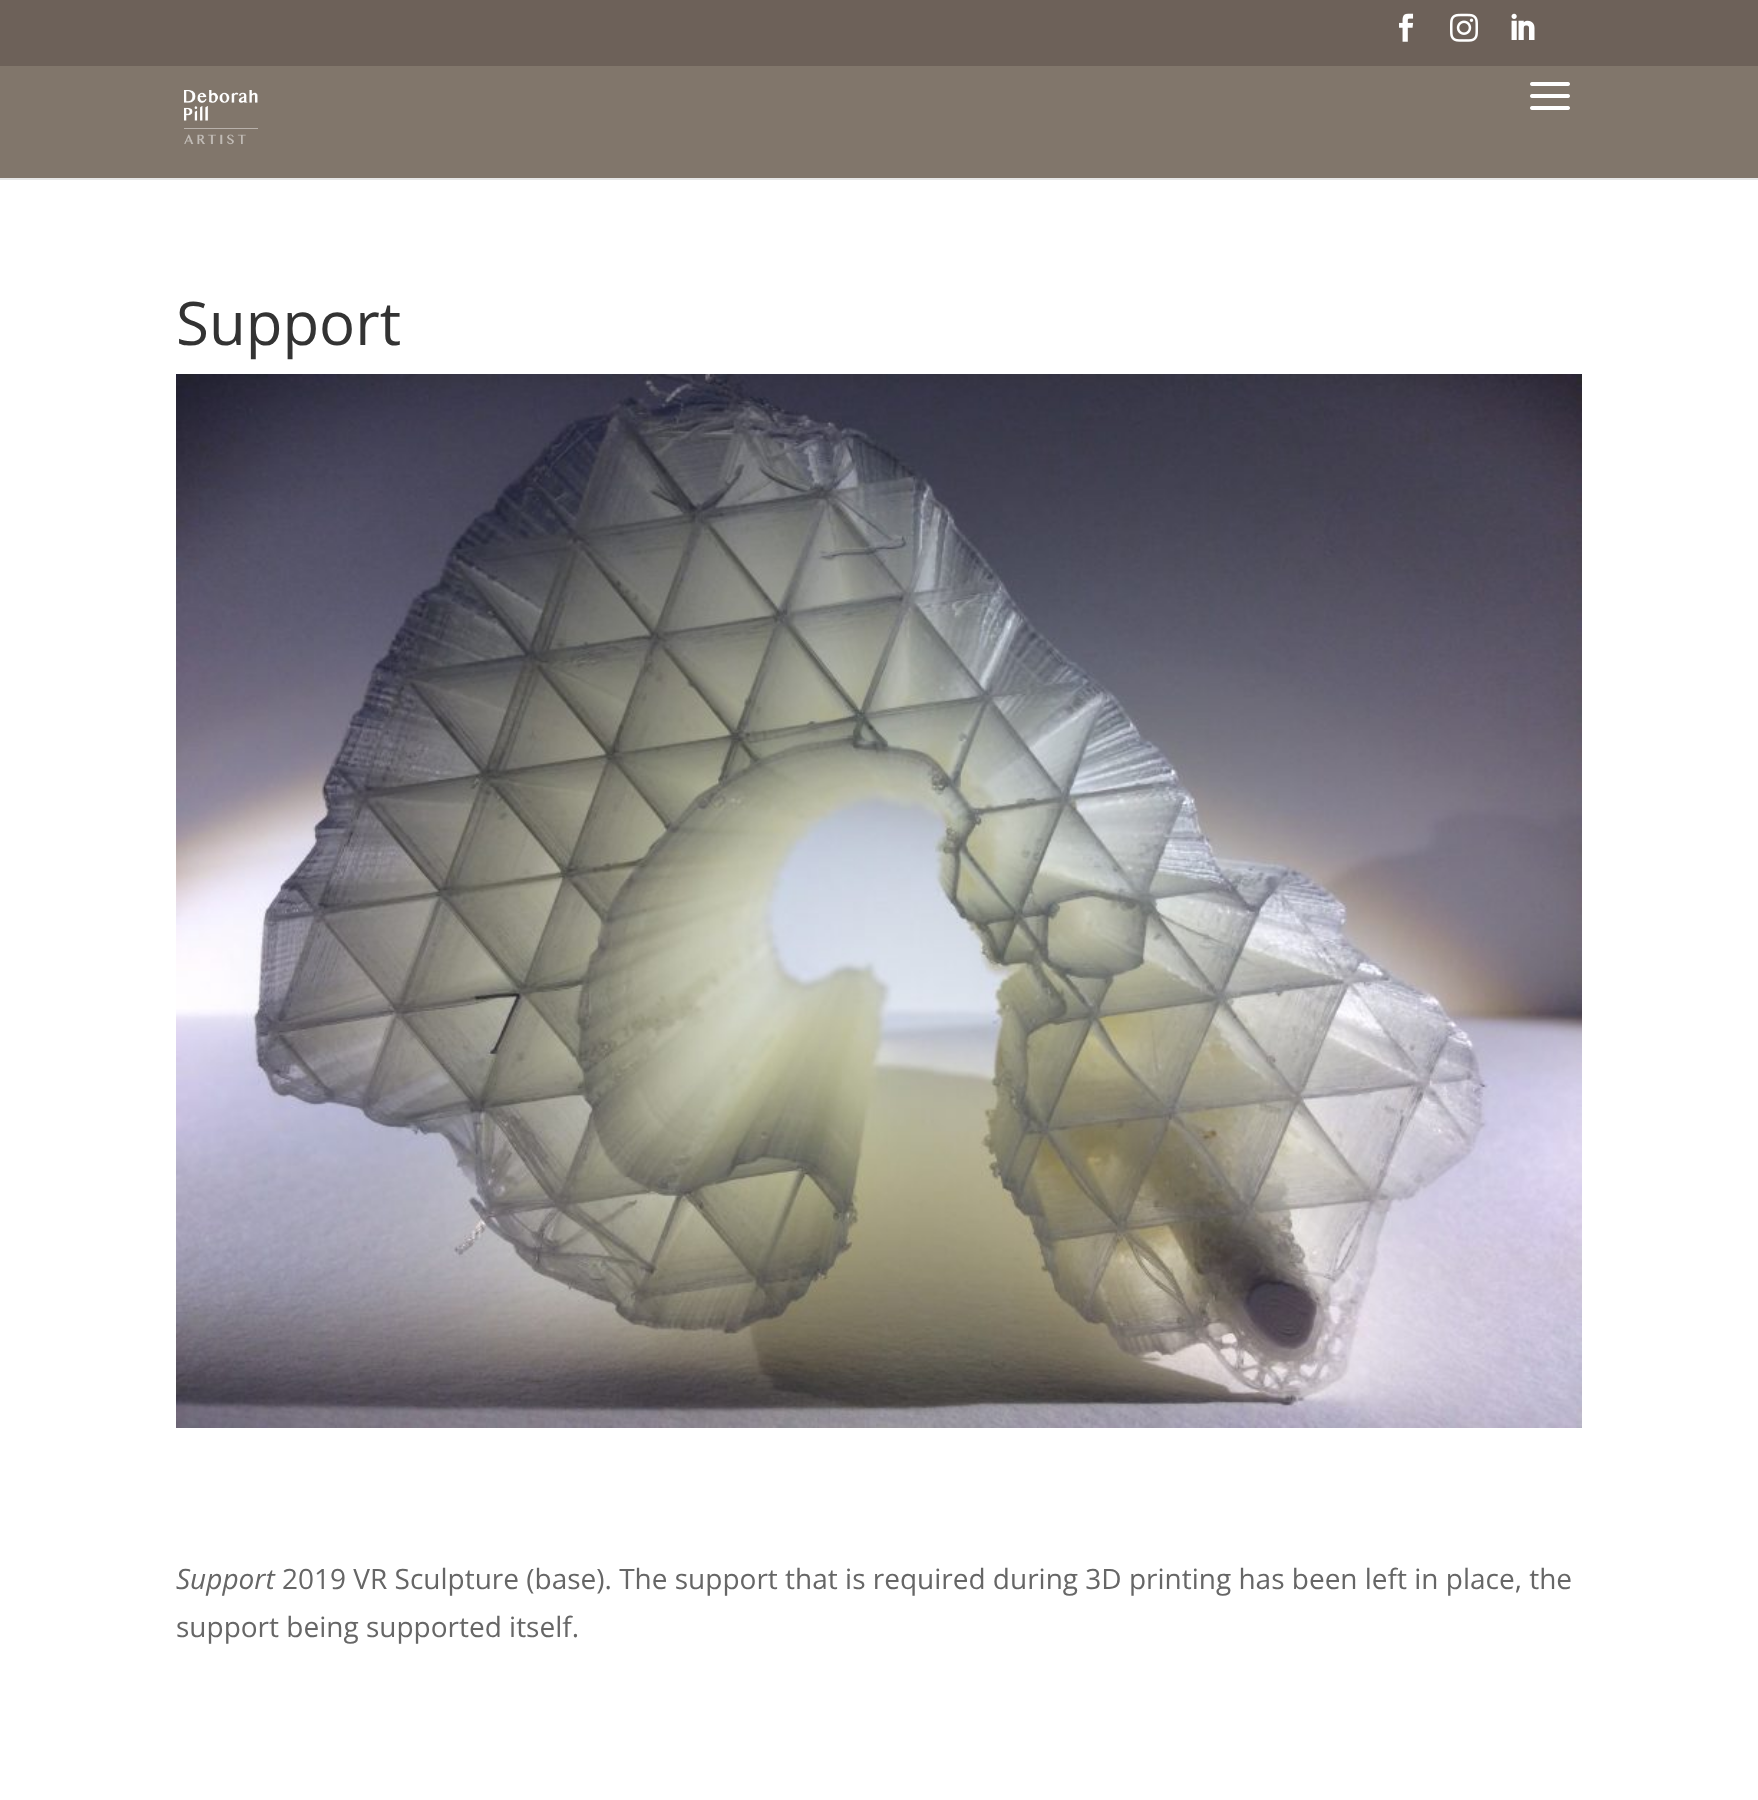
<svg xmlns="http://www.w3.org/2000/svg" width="1758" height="1800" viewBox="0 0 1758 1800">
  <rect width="100%" height="100%" fill="rgb(255,255,255)"/>
  <rect x="0" y="0" width="1758" height="66" fill="rgb(109,97,89)"/>
  <image x="1399" y="13" width="15" height="29" href="pic1.png"/>
  <image x="1450" y="13" width="28" height="29" href="pic2.png"/>
  <image x="1511" y="13" width="24" height="27" href="pic3.png"/>
  <rect x="0" y="178" width="1758" height="2" fill="rgb(230,230,230)"/>
  <rect x="0" y="66" width="1758" height="112" fill="rgb(129,118,107)"/>
  <image x="184" y="90" width="74" height="55" href="pic4.png"/>
  <image x="1530" y="82" width="40" height="28" href="pic5.png"/>
  <text x="176" y="345" font-family="Open Sans" font-size="60" fill="rgb(51,51,51)">Support</text>
  <image x="176" y="374" width="1406" height="1054" href="pic6.png"/>
  <text x="176" y="1589" font-family="Open Sans" font-size="28" font-style="italic" fill="rgb(102,102,102)">Support</text>
  <g font-family="Open Sans" font-size="28" fill="rgb(102,102,102)">
    <text x="282" y="1589">2019 VR Sculpture (base). The support that is required during 3D printing has been left in place, the</text>
    <text x="176" y="1637">support being supported itself.</text>
  </g>
</svg>
